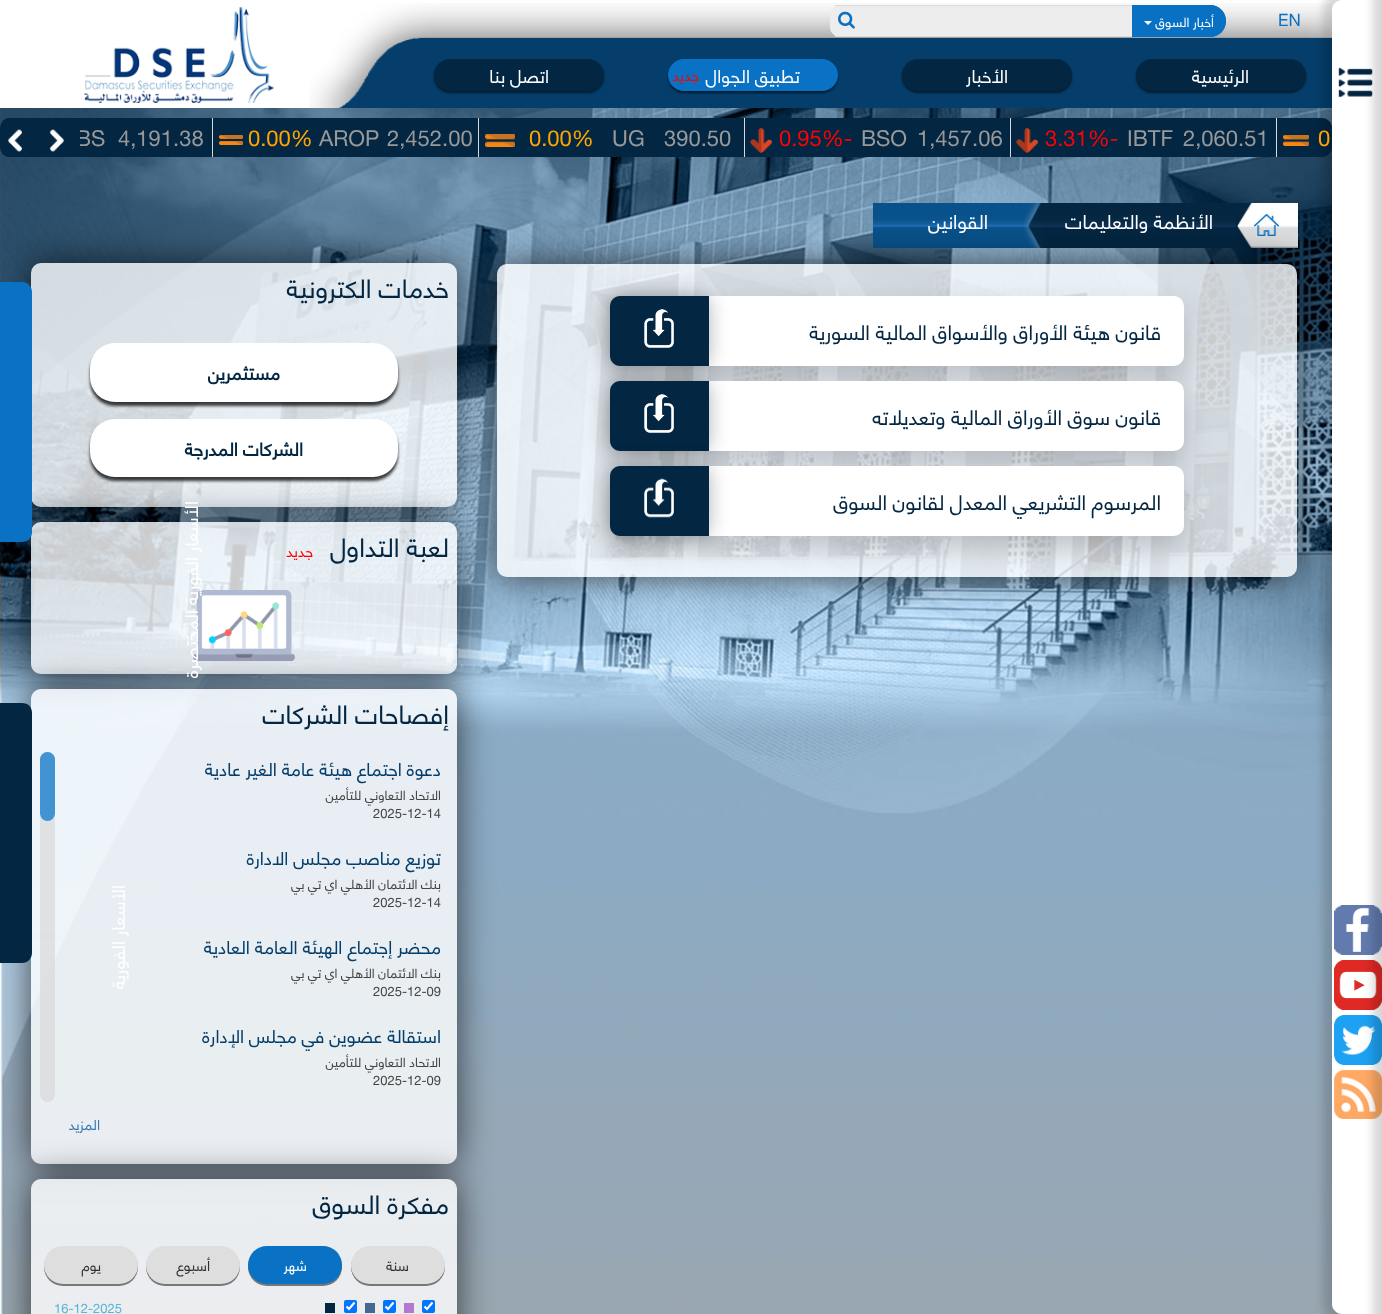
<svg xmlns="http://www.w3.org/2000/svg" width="1382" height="1314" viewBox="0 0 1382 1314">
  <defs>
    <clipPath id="clip1"><path d="M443 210H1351V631H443ZM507 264H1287C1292.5 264 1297 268.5 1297 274V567C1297 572.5 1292.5 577 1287 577H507C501.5 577 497 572.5 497 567V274C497 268.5 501.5 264 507 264Z" clip-rule="evenodd"/></clipPath>
    <clipPath id="clip2"><rect x="2" y="118" width="1330" height="39"/></clipPath>
    <clipPath id="clip3"><path d="M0 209H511V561H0ZM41 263H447C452.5 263 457 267.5 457 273V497C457 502.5 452.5 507 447 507H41C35.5 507 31 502.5 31 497V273C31 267.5 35.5 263 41 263Z" clip-rule="evenodd"/></clipPath>
    <clipPath id="clip4"><path d="M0 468H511V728H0ZM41 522H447C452.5 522 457 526.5 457 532V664C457 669.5 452.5 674 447 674H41C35.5 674 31 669.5 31 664V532C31 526.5 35.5 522 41 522Z" clip-rule="evenodd"/></clipPath>
    <clipPath id="clip5"><path d="M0 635H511V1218H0ZM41 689H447C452.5 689 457 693.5 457 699V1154C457 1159.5 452.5 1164 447 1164H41C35.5 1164 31 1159.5 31 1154V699C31 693.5 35.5 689 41 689Z" clip-rule="evenodd"/></clipPath>
    <clipPath id="clip6"><path d="M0 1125H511V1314H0ZM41 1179H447C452.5 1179 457 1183.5 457 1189V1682C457 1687.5 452.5 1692 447 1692H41C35.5 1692 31 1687.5 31 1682V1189C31 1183.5 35.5 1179 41 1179Z" clip-rule="evenodd"/></clipPath>
  </defs>
  <rect width="100%" height="100%" fill="rgb(255,255,255)"/>
  <image x="0" y="0" width="1342" height="1314" href="pic1.png"/>
  <rect x="0" y="56" width="1332" height="52" fill="rgb(255,255,255)"/>
  <image x="309" y="3" width="1023" height="105" href="pic7.png"/>
  <path d="M1278 118H1322C1327.5 118 1332 122.5 1332 128V147C1332 152.5 1327.5 157 1322 157H1278Z" fill="rgb(3,38,66)"/>
  <image x="1283" y="135" width="26" height="11" href="pic10.png"/>
  <rect x="1323" y="-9" width="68" height="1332" rx="19" fill="rgba(0,0,0,0.16)" filter="blur(5px)"/>
  <rect x="1236" y="203" width="62" height="45" fill="rgb(4,38,65)"/>
  <image x="1237" y="203" width="61" height="45" href="pic16.png"/>
  <image x="1254" y="214" width="25" height="22" href="pic17.png"/>
  <image x="1044" y="203" width="192" height="45" href="pic18.png"/>
  <image x="873" y="203" width="168" height="45" href="pic20.png"/>
  <g clip-path="url(#clip1)">
    <rect x="497" y="264" width="800" height="313" rx="10" fill="rgba(0,0,0,0.66)" filter="blur(17.5px)"/>
  </g>
  <path d="M1342 0H1382V1314H1342C1336.5 1314 1332 1309.5 1332 1304V10C1332 4.5 1336.5 0 1342 0Z" fill="rgb(255,255,255)"/>
  <image x="1338" y="67" width="35" height="30" href="pic2.png"/>
  <image x="1334" y="905" width="48" height="50" href="pic3.png"/>
  <image x="1334" y="960" width="48" height="50" href="pic4.png"/>
  <image x="1334" y="1015" width="48" height="50" href="pic5.png"/>
  <image x="1334" y="1070" width="48" height="49" href="pic6.png"/>
  <rect x="1373" y="-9" width="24" height="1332" fill="rgba(0,0,0,0.16)" filter="blur(5px)"/>
  <text x="1278" y="26" font-family="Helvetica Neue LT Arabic" font-size="17" fill="rgb(9,114,196)">EN</text>
  <rect x="861" y="5" width="272" height="1" fill="rgb(218,218,218)"/>
  <rect x="861" y="36" width="272" height="1" fill="rgb(218,218,218)"/>
  <path d="M1132 5H1210C1219 5 1226 12 1226 21C1226 30 1219 37 1210 37H1132Z" fill="rgb(8,113,196)"/>
  <path d="M1133.5 5H1210C1219 5 1226 12 1226 21C1226 30 1219 37 1210 37H1133.5C1132.5 37 1132 36.5 1132 35.5V6.5C1132 5.5 1132.5 5 1133.5 5Z" fill="rgb(8,113,196)"/>
  <text x="1214" y="27" font-family="Helvetica Neue LT Arabic" font-size="13" direction="rtl" fill="rgb(255,255,255)">أخبار السوق</text>
  <path d="M1144 21H1152L1148 25Z" fill="rgb(255,255,255)"/>
  <rect x="862" y="6" width="270" height="30" fill="rgb(237,237,237)"/>
  <path d="M840 5H862V37H840C834.5 37 830 32.5 830 27V15C830 9.5 834.5 5 840 5Z" fill="rgb(237,237,237)"/>
  <rect x="835" y="5" width="27" height="1" fill="rgb(218,218,218)"/>
  <rect x="835" y="36" width="27" height="1" fill="rgb(218,218,218)"/>
  <image x="838" y="11" width="17" height="18" href="pic8.png"/>
  <rect x="1136" y="61" width="170" height="32" rx="16" fill="rgb(4,28,45)" filter="blur(1px)"/>
  <rect x="1136" y="59" width="170" height="32" rx="16" fill="rgb(3,38,66)"/>
  <text x="1249" y="83" font-family="Helvetica Neue LT Arabic" font-size="18.25" direction="rtl" fill="rgb(255,255,255)">الرئيسية</text>
  <rect x="902" y="61" width="170" height="32" rx="16" fill="rgb(4,28,45)" filter="blur(1px)"/>
  <rect x="902" y="59" width="170" height="32" rx="16" fill="rgb(3,38,66)"/>
  <text x="1008" y="83" font-family="Helvetica Neue LT Arabic" font-size="18.25" direction="rtl" fill="rgb(255,255,255)">الأخبار</text>
  <rect x="668" y="61" width="170" height="32" rx="16" fill="rgb(4,28,45)" filter="blur(1px)"/>
  <rect x="668" y="59" width="170" height="32" rx="16" fill="rgb(9,114,196)"/>
  <text x="800" y="83" font-family="Helvetica Neue LT Arabic" font-size="18.25" direction="rtl" fill="rgb(255,255,255)">تطبيق الجوال</text>
  <text x="699" y="81" font-family="Helvetica Neue LT Arabic" font-size="15" direction="rtl" fill="rgb(255,0,0)">جديد</text>
  <rect x="434" y="61" width="170" height="32" rx="16" fill="rgb(4,28,45)" filter="blur(1px)"/>
  <rect x="434" y="59" width="170" height="32" rx="16" fill="rgb(3,38,66)"/>
  <text x="549" y="83" font-family="Helvetica Neue LT Arabic" font-size="18.25" direction="rtl" fill="rgb(255,255,255)">اتصل بنا</text>
  <image x="84" y="7" width="190" height="96" href="pic9.png"/>
  <text x="1318" y="146" font-family="Helvetica Neue LT Arabic" font-size="22" fill="rgb(255,165,0)">0</text>
  <rect x="214" y="118" width="1064" height="39" fill="rgb(3,38,66)"/>
  <rect x="1276" y="118" width="1" height="39" fill="rgb(215,218,218)"/>
  <g font-family="Helvetica Neue LT Arabic" font-size="22" fill="rgb(153,153,153)">
    <text x="1183" y="146">2,060.51</text>
    <text x="1127" y="146">IBTF</text>
  </g>
  <text x="1045" y="146" font-family="Helvetica Neue LT Arabic" font-size="22" fill="rgb(249,3,3)">3.31%-</text>
  <image x="1016" y="128" width="22" height="25" href="pic11.png"/>
  <rect x="1010" y="118" width="1" height="39" fill="rgb(215,218,218)"/>
  <g font-family="Helvetica Neue LT Arabic" font-size="22" fill="rgb(153,153,153)">
    <text x="917" y="146">1,457.06</text>
    <text x="861" y="146">BSO</text>
  </g>
  <text x="779" y="146" font-family="Helvetica Neue LT Arabic" font-size="22" fill="rgb(249,3,3)">0.95%-</text>
  <image x="750" y="128" width="22" height="25" href="pic11.png"/>
  <rect x="744" y="118" width="1" height="39" fill="rgb(215,218,218)"/>
  <g font-family="Helvetica Neue LT Arabic" font-size="22" fill="rgb(153,153,153)">
    <text x="664" y="146">390.50</text>
    <text x="612" y="146">UG</text>
  </g>
  <text x="529" y="146" font-family="Helvetica Neue LT Arabic" font-size="22" fill="rgb(255,165,0)">0.00%</text>
  <image x="485" y="134" width="30" height="13" href="pic12.png"/>
  <rect x="478" y="118" width="1" height="39" fill="rgb(215,218,218)"/>
  <g font-family="Helvetica Neue LT Arabic" font-size="22" fill="rgb(153,153,153)">
    <text x="387" y="146">2,452.00</text>
    <text x="319" y="146">AROP</text>
  </g>
  <text x="248" y="146" font-family="Helvetica Neue LT Arabic" font-size="22" fill="rgb(255,165,0)">0.00%</text>
  <image x="219" y="135" width="24" height="10" href="pic13.png"/>
  <g clip-path="url(#clip2)">
    <path d="M10 118H214V157H10C4.5 157 0 152.5 0 147V128C0 122.5 4.5 118 10 118Z" fill="rgb(3,38,66)"/>
  </g>
  <rect x="212" y="118" width="1" height="39" fill="rgb(215,218,218)"/>
  <g font-family="Helvetica Neue LT Arabic" font-size="22" fill="rgb(153,153,153)">
    <text x="118" y="146">4,191.38</text>
    <text x="76" y="146">BS</text>
  </g>
  <rect x="0" y="118" width="80" height="39" rx="10" fill="rgb(3,38,66)"/>
  <image x="50" y="129" width="14" height="23" href="pic14.png"/>
  <image x="8" y="129" width="14" height="23" href="pic15.png"/>
  <text x="1213" y="229" font-family="Helvetica Neue LT Arabic" font-size="19.5" direction="rtl" fill="rgb(255,255,255)">الأنظمة والتعليمات</text>
  <image x="1024" y="203" width="20" height="45" href="pic19.png"/>
  <text x="988" y="229" font-family="Helvetica Neue LT Arabic" font-size="19.5" direction="rtl" fill="rgb(255,255,255)">القوانين</text>
  <rect x="497" y="264" width="800" height="313" rx="10" fill="rgba(255,255,255,0.8)"/>
  <rect x="610" y="309" width="574" height="70" rx="10" fill="rgba(0,0,0,0.19)" filter="blur(13.5px)"/>
  <rect x="610" y="296" width="574" height="70" rx="10" fill="rgb(255,255,255)"/>
  <text x="1161" y="340" font-family="Helvetica Neue LT Arabic" font-size="20.6" direction="rtl" fill="rgb(3,38,66)">قانون هيئة الأوراق والأسواق المالية السورية</text>
  <rect x="610" y="394" width="574" height="70" rx="10" fill="rgba(0,0,0,0.19)" filter="blur(13.5px)"/>
  <rect x="610" y="381" width="574" height="70" rx="10" fill="rgb(255,255,255)"/>
  <rect x="610" y="296" width="99" height="70" rx="10" fill="rgba(0,0,0,0.3)" filter="blur(10px)"/>
  <path d="M620 296H709V366H620C614.5 366 610 361.5 610 356V306C610 300.5 614.5 296 620 296Z" fill="rgb(3,38,66)"/>
  <image x="644" y="309" width="30" height="39" href="pic21.png"/>
  <text x="1161" y="425" font-family="Helvetica Neue LT Arabic" font-size="20.6" direction="rtl" fill="rgb(3,38,66)">قانون سوق الأوراق المالية وتعديلاته</text>
  <rect x="610" y="479" width="574" height="70" rx="10" fill="rgba(0,0,0,0.19)" filter="blur(13.5px)"/>
  <rect x="610" y="466" width="574" height="70" rx="10" fill="rgb(255,255,255)"/>
  <rect x="610" y="381" width="99" height="70" rx="10" fill="rgba(0,0,0,0.3)" filter="blur(10px)"/>
  <path d="M620 381H709V451H620C614.5 451 610 446.5 610 441V391C610 385.5 614.5 381 620 381Z" fill="rgb(3,38,66)"/>
  <image x="644" y="394" width="30" height="39" href="pic21.png"/>
  <text x="1161" y="510" font-family="Helvetica Neue LT Arabic" font-size="20.6" direction="rtl" fill="rgb(3,38,66)">المرسوم التشريعي المعدل لقانون السوق</text>
  <rect x="610" y="466" width="99" height="70" rx="10" fill="rgba(0,0,0,0.3)" filter="blur(10px)"/>
  <path d="M620 466H709V536H620C614.5 536 610 531.5 610 526V476C610 470.5 614.5 466 620 466Z" fill="rgb(3,38,66)"/>
  <image x="644" y="478" width="30" height="40" href="pic22.png"/>
  <g clip-path="url(#clip3)">
    <rect x="31" y="263" width="426" height="244" rx="10" fill="rgba(0,0,0,0.66)" filter="blur(17.5px)"/>
  </g>
  <rect x="31" y="263" width="426" height="244" rx="10" fill="rgba(255,255,255,0.8)"/>
  <text x="449" y="298" font-family="Helvetica Neue LT Arabic" font-size="26" direction="rtl" fill="rgb(3,38,66)">خدمات الكترونية</text>
  <rect x="90" y="347" width="308" height="59" rx="25" fill="rgba(0,0,0,0.75)" filter="blur(1.5px)"/>
  <rect x="90" y="343" width="308" height="59" rx="25" fill="rgb(255,255,255)"/>
  <text x="280" y="380" font-family="Helvetica Neue LT Arabic" font-size="18.25" font-weight="bold" direction="rtl" fill="rgb(3,38,66)">مستثمرين</text>
  <rect x="90" y="423" width="308" height="58" rx="25" fill="rgba(0,0,0,0.75)" filter="blur(1.5px)"/>
  <g clip-path="url(#clip4)">
    <rect x="31" y="522" width="426" height="152" rx="10" fill="rgba(0,0,0,0.66)" filter="blur(17.5px)"/>
  </g>
  <rect x="90" y="419" width="308" height="58" rx="25" fill="rgb(255,255,255)"/>
  <text x="303" y="456" font-family="Helvetica Neue LT Arabic" font-size="18.25" font-weight="bold" direction="rtl" fill="rgb(3,38,66)">الشركات المدرجة</text>
  <rect x="31" y="522" width="426" height="152" rx="10" fill="rgba(255,255,255,0.8)"/>
  <text x="449" y="557" font-family="Helvetica Neue LT Arabic" font-size="26" direction="rtl" fill="rgb(3,38,66)">لعبة التداول</text>
  <text x="313" y="557" font-family="Helvetica Neue LT Arabic" font-size="15" direction="rtl" fill="rgb(255,0,0)">جديد</text>
  <g clip-path="url(#clip5)">
    <rect x="31" y="689" width="426" height="475" rx="10" fill="rgba(0,0,0,0.66)" filter="blur(17.5px)"/>
  </g>
  <image x="193" y="590" width="102" height="71" href="pic23.png"/>
  <rect x="31" y="689" width="426" height="475" rx="10" fill="rgba(255,255,255,0.8)"/>
  <text x="449" y="724" font-family="Helvetica Neue LT Arabic" font-size="26" direction="rtl" fill="rgb(3,38,66)">إفصاحات الشركات</text>
  <text x="441" y="776" font-family="Helvetica Neue LT Arabic" font-size="18.25" direction="rtl" fill="rgb(5,62,107)">دعوة اجتماع هيئة عامة الغير عادية</text>
  <text x="441" y="800" font-family="Helvetica Neue LT Arabic" font-size="13" direction="rtl" fill="rgb(68,68,68)">الاتحاد التعاوني للتأمين</text>
  <text x="373" y="818" font-family="Helvetica Neue LT Arabic" font-size="13" fill="rgb(68,68,68)">2025-12-14</text>
  <text x="441" y="865" font-family="Helvetica Neue LT Arabic" font-size="18.25" direction="rtl" fill="rgb(5,62,107)">توزيع مناصب مجلس الادارة</text>
  <text x="441" y="889" font-family="Helvetica Neue LT Arabic" font-size="13" direction="rtl" fill="rgb(68,68,68)">بنك الائتمان الأهلي اي تي بي</text>
  <text x="373" y="907" font-family="Helvetica Neue LT Arabic" font-size="13" fill="rgb(68,68,68)">2025-12-14</text>
  <text x="441" y="954" font-family="Helvetica Neue LT Arabic" font-size="18.25" direction="rtl" fill="rgb(5,62,107)">محضر إجتماع الهيئة العامة العادية</text>
  <text x="441" y="978" font-family="Helvetica Neue LT Arabic" font-size="13" direction="rtl" fill="rgb(68,68,68)">بنك الائتمان الأهلي اي تي بي</text>
  <text x="373" y="996" font-family="Helvetica Neue LT Arabic" font-size="13" fill="rgb(68,68,68)">2025-12-09</text>
  <text x="441" y="1043" font-family="Helvetica Neue LT Arabic" font-size="18.25" direction="rtl" fill="rgb(5,62,107)">استقالة عضوين في مجلس الإدارة</text>
  <text x="441" y="1067" font-family="Helvetica Neue LT Arabic" font-size="13" direction="rtl" fill="rgb(68,68,68)">الاتحاد التعاوني للتأمين</text>
  <text x="373" y="1085" font-family="Helvetica Neue LT Arabic" font-size="13" fill="rgb(68,68,68)">2025-12-09</text>
  <rect x="40" y="752" width="15" height="350" rx="7.5" fill="rgba(218,218,218,0.75)"/>
  <rect x="40" y="752" width="15" height="69" rx="7.5" fill="rgb(66,147,209)"/>
  <g clip-path="url(#clip6)">
    <rect x="31" y="1179" width="426" height="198" rx="10" fill="rgba(0,0,0,0.66)" filter="blur(17.5px)"/>
  </g>
  <text x="100" y="1130" font-family="Helvetica Neue LT Arabic" font-size="14" direction="rtl" fill="rgb(51,122,183)">المزيد</text>
  <rect x="31" y="1179" width="426" height="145" rx="10" fill="rgba(255,255,255,0.8)"/>
  <text x="449" y="1214" font-family="Helvetica Neue LT Arabic" font-size="26" direction="rtl" fill="rgb(3,38,66)">مفكرة السوق</text>
  <rect x="351" y="1248" width="94" height="38" rx="19" fill="rgb(119,119,119)" filter="blur(0.5px)"/>
  <rect x="351" y="1246" width="94" height="38" rx="19" fill="rgb(222,222,222)"/>
  <text x="409" y="1271" font-family="Helvetica Neue LT Arabic" font-size="14" direction="rtl" fill="rgb(50,50,50)">سنة</text>
  <rect x="248" y="1248" width="94" height="38" rx="19" fill="rgb(119,119,119)" filter="blur(0.5px)"/>
  <rect x="248" y="1246" width="94" height="38" rx="19" fill="rgb(9,114,196)"/>
  <text x="307" y="1271" font-family="Helvetica Neue LT Arabic" font-size="14" direction="rtl" fill="rgb(255,255,255)">شهر</text>
  <rect x="146" y="1248" width="94" height="38" rx="19" fill="rgb(119,119,119)" filter="blur(0.5px)"/>
  <rect x="146" y="1246" width="94" height="38" rx="19" fill="rgb(222,222,222)"/>
  <text x="210" y="1271" font-family="Helvetica Neue LT Arabic" font-size="14" direction="rtl" fill="rgb(50,50,50)">أسبوع</text>
  <rect x="44" y="1248" width="94" height="38" rx="19" fill="rgb(119,119,119)" filter="blur(0.5px)"/>
  <rect x="44" y="1246" width="94" height="38" rx="19" fill="rgb(222,222,222)"/>
  <text x="101" y="1271" font-family="Helvetica Neue LT Arabic" font-size="14" direction="rtl" fill="rgb(50,50,50)">يوم</text>
  <rect x="422" y="1300" width="13" height="13" rx="2" fill="rgb(0,117,255)"/>
  <path d="M424.5 1306.5L427 1309L432.5 1302.5" fill="none" stroke="rgb(255,255,255)" stroke-width="2.1"/>
  <rect x="404" y="1303" width="10" height="10" fill="rgb(179,120,211)"/>
  <rect x="383" y="1300" width="13" height="13" rx="2" fill="rgb(0,117,255)"/>
  <path d="M385.5 1306.5L388 1309L393.5 1302.5" fill="none" stroke="rgb(255,255,255)" stroke-width="2.1"/>
  <rect x="365" y="1303" width="10" height="10" fill="rgb(67,104,148)"/>
  <rect x="344" y="1300" width="13" height="13" rx="2" fill="rgb(0,117,255)"/>
  <path d="M346.5 1306.5L349 1309L354.5 1302.5" fill="none" stroke="rgb(255,255,255)" stroke-width="2.1"/>
  <rect x="325" y="1303" width="10" height="10" fill="rgb(3,38,66)"/>
  <text x="54" y="1313" font-family="Helvetica Neue LT Arabic" font-size="13" fill="rgb(84,182,219)">16-12-2025</text>
  <path d="M-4 542V282H22C28 282 32 287 32 292V532C32 538 28 542 22 542Z" fill="rgb(9,114,196)"/>
  <text x="198" y="501" transform="rotate(-90 198 501)" font-family="Helvetica Neue LT Arabic" font-size="18.25" direction="rtl" fill="rgb(255,255,255)">الأسعار الفورية المختصرة</text>
  <path d="M-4 963V703H22C28 703 32 707 32 713V953C32 958 28 963 22 963Z" fill="rgb(3,38,66)"/>
  <text x="125" y="885" transform="rotate(-90 125 885)" font-family="Helvetica Neue LT Arabic" font-size="18.25" direction="rtl" fill="rgb(255,255,255)">الأسعار الفورية</text>
</svg>
